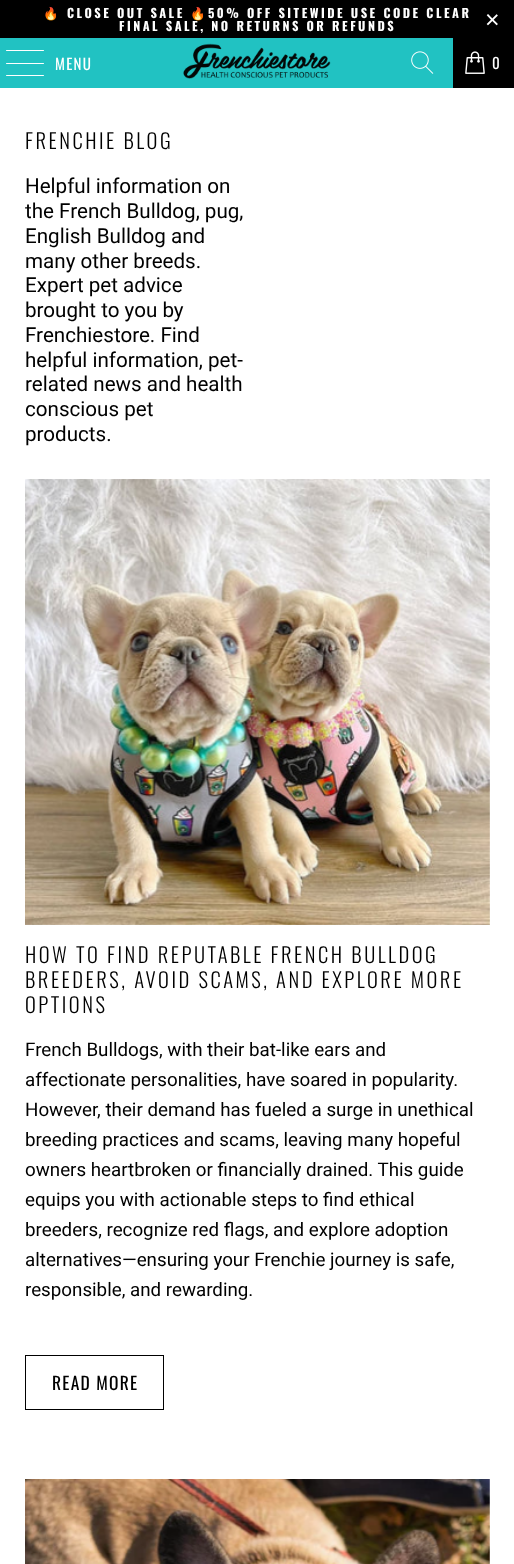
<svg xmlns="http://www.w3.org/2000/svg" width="514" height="1564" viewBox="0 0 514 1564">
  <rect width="100%" height="100%" fill="rgb(255,255,255)"/>
  <rect x="0" y="0" width="514" height="38" fill="rgb(0,0,0)"/>
  <text x="43" y="18" font-family="Noto Color Emoji" font-size="12.5" font-weight="bold" letter-spacing="2.5" fill="rgb(255,255,255)">🔥</text>
  <text x="67" y="18" font-family="Oswald" font-size="12.5" font-weight="bold" letter-spacing="2.5" fill="rgb(255,255,255)">CLOSE OUT SALE</text>
  <text x="190" y="18" font-family="Noto Color Emoji" font-size="12.5" font-weight="bold" letter-spacing="2.5" fill="rgb(255,255,255)">🔥</text>
  <g font-family="Oswald" font-size="12.5" font-weight="bold" letter-spacing="2.5" fill="rgb(255,255,255)">
    <text x="208" y="18">50% OFF SITEWIDE USE CODE CLEAR</text>
    <text x="119" y="31">FINAL SALE, NO RETURNS OR REFUNDS</text>
  </g>
  <text x="485" y="28" font-family="Liberation Sans" font-size="25" letter-spacing="2.5" fill="rgb(255,255,255)">×</text>
  <rect x="0" y="38" width="453" height="50" fill="rgb(33,194,194)"/>
  <rect x="6" y="50" width="38" height="1" rx="0.5" fill="rgb(255,255,255)"/>
  <rect x="6" y="63" width="38" height="1" rx="0.5" fill="rgb(255,255,255)"/>
  <rect x="6" y="75" width="38" height="1" rx="0.5" fill="rgb(255,255,255)"/>
  <text x="55" y="70" font-family="Oswald" font-size="15" letter-spacing="1.25" fill="rgb(255,255,255)">MENU</text>
  <image x="183" y="43" width="148" height="36" href="pic1.png"/>
  <image x="411" y="51" width="23" height="23" href="pic2.png"/>
  <rect x="453" y="38" width="61" height="50" fill="rgb(0,0,0)"/>
  <image x="465" y="51" width="20" height="23" href="pic3.png"/>
  <text x="492" y="69" font-family="Oswald" font-size="15" letter-spacing="1.25" fill="rgb(255,255,255)">0</text>
  <text x="25" y="149" font-family="Oswald" font-size="20.6" font-weight="300" letter-spacing="2.5" fill="rgb(0,0,0)">FRENCHIE BLOG</text>
  <g font-family="Roboto" font-size="20.6" fill="rgb(0,0,0)">
    <text>
      <tspan x="25" y="193">Helpful information on</tspan>
      <tspan x="25" y="218">the French Bulldog, pug,</tspan>
      <tspan x="25" y="243">English Bulldog and</tspan>
      <tspan x="25" y="268">many other breeds.</tspan>
      <tspan x="25" y="292">Expert pet advice</tspan>
      <tspan x="25" y="317">brought to you by</tspan>
      <tspan x="25" y="342">Frenchiestore. Find</tspan>
      <tspan x="25" y="367">helpful information, pet-</tspan>
      <tspan x="25" y="391">related news and health</tspan>
      <tspan x="25" y="416">conscious pet</tspan>
      <tspan x="25" y="441">products.</tspan>
    </text>
  </g>
  <image x="25" y="479" width="465" height="446" href="pic4.png"/>
  <g font-family="Oswald" font-size="20.6" font-weight="300" letter-spacing="2.5" fill="rgb(0,0,0)">
    <text>
      <tspan x="25" y="963">HOW TO FIND REPUTABLE FRENCH BULLDOG</tspan>
      <tspan x="25" y="988">BREEDERS, AVOID SCAMS, AND EXPLORE MORE</tspan>
      <tspan x="25" y="1013">OPTIONS</tspan>
    </text>
  </g>
  <g font-family="Roboto" font-size="18.75" fill="rgb(0,0,0)">
    <text>
      <tspan x="25" y="1056">French Bulldogs, with their bat-like ears and</tspan>
      <tspan x="25" y="1086">affectionate personalities, have soared in popularity.</tspan>
      <tspan x="25" y="1116">However, their demand has fueled a surge in unethical</tspan>
      <tspan x="25" y="1146">breeding practices and scams, leaving many hopeful</tspan>
      <tspan x="25" y="1176">owners heartbroken or financially drained. This guide</tspan>
      <tspan x="25" y="1206">equips you with actionable steps to find ethical</tspan>
      <tspan x="25" y="1236">breeders, recognize red flags, and explore adoption</tspan>
      <tspan x="25" y="1266">alternatives—ensuring your Frenchie journey is safe,</tspan>
      <tspan x="25" y="1296">responsible, and rewarding.</tspan>
    </text>
  </g>
  <rect x="25.5" y="1355.5" width="138" height="54" fill="none" stroke="rgb(0,0,0)"/>
  <text x="52" y="1390" font-family="Oswald" font-size="17.5" letter-spacing="1.25" fill="rgb(0,0,0)">READ MORE</text>
  <image x="25" y="1479" width="465" height="85" href="pic5.png"/>
</svg>
